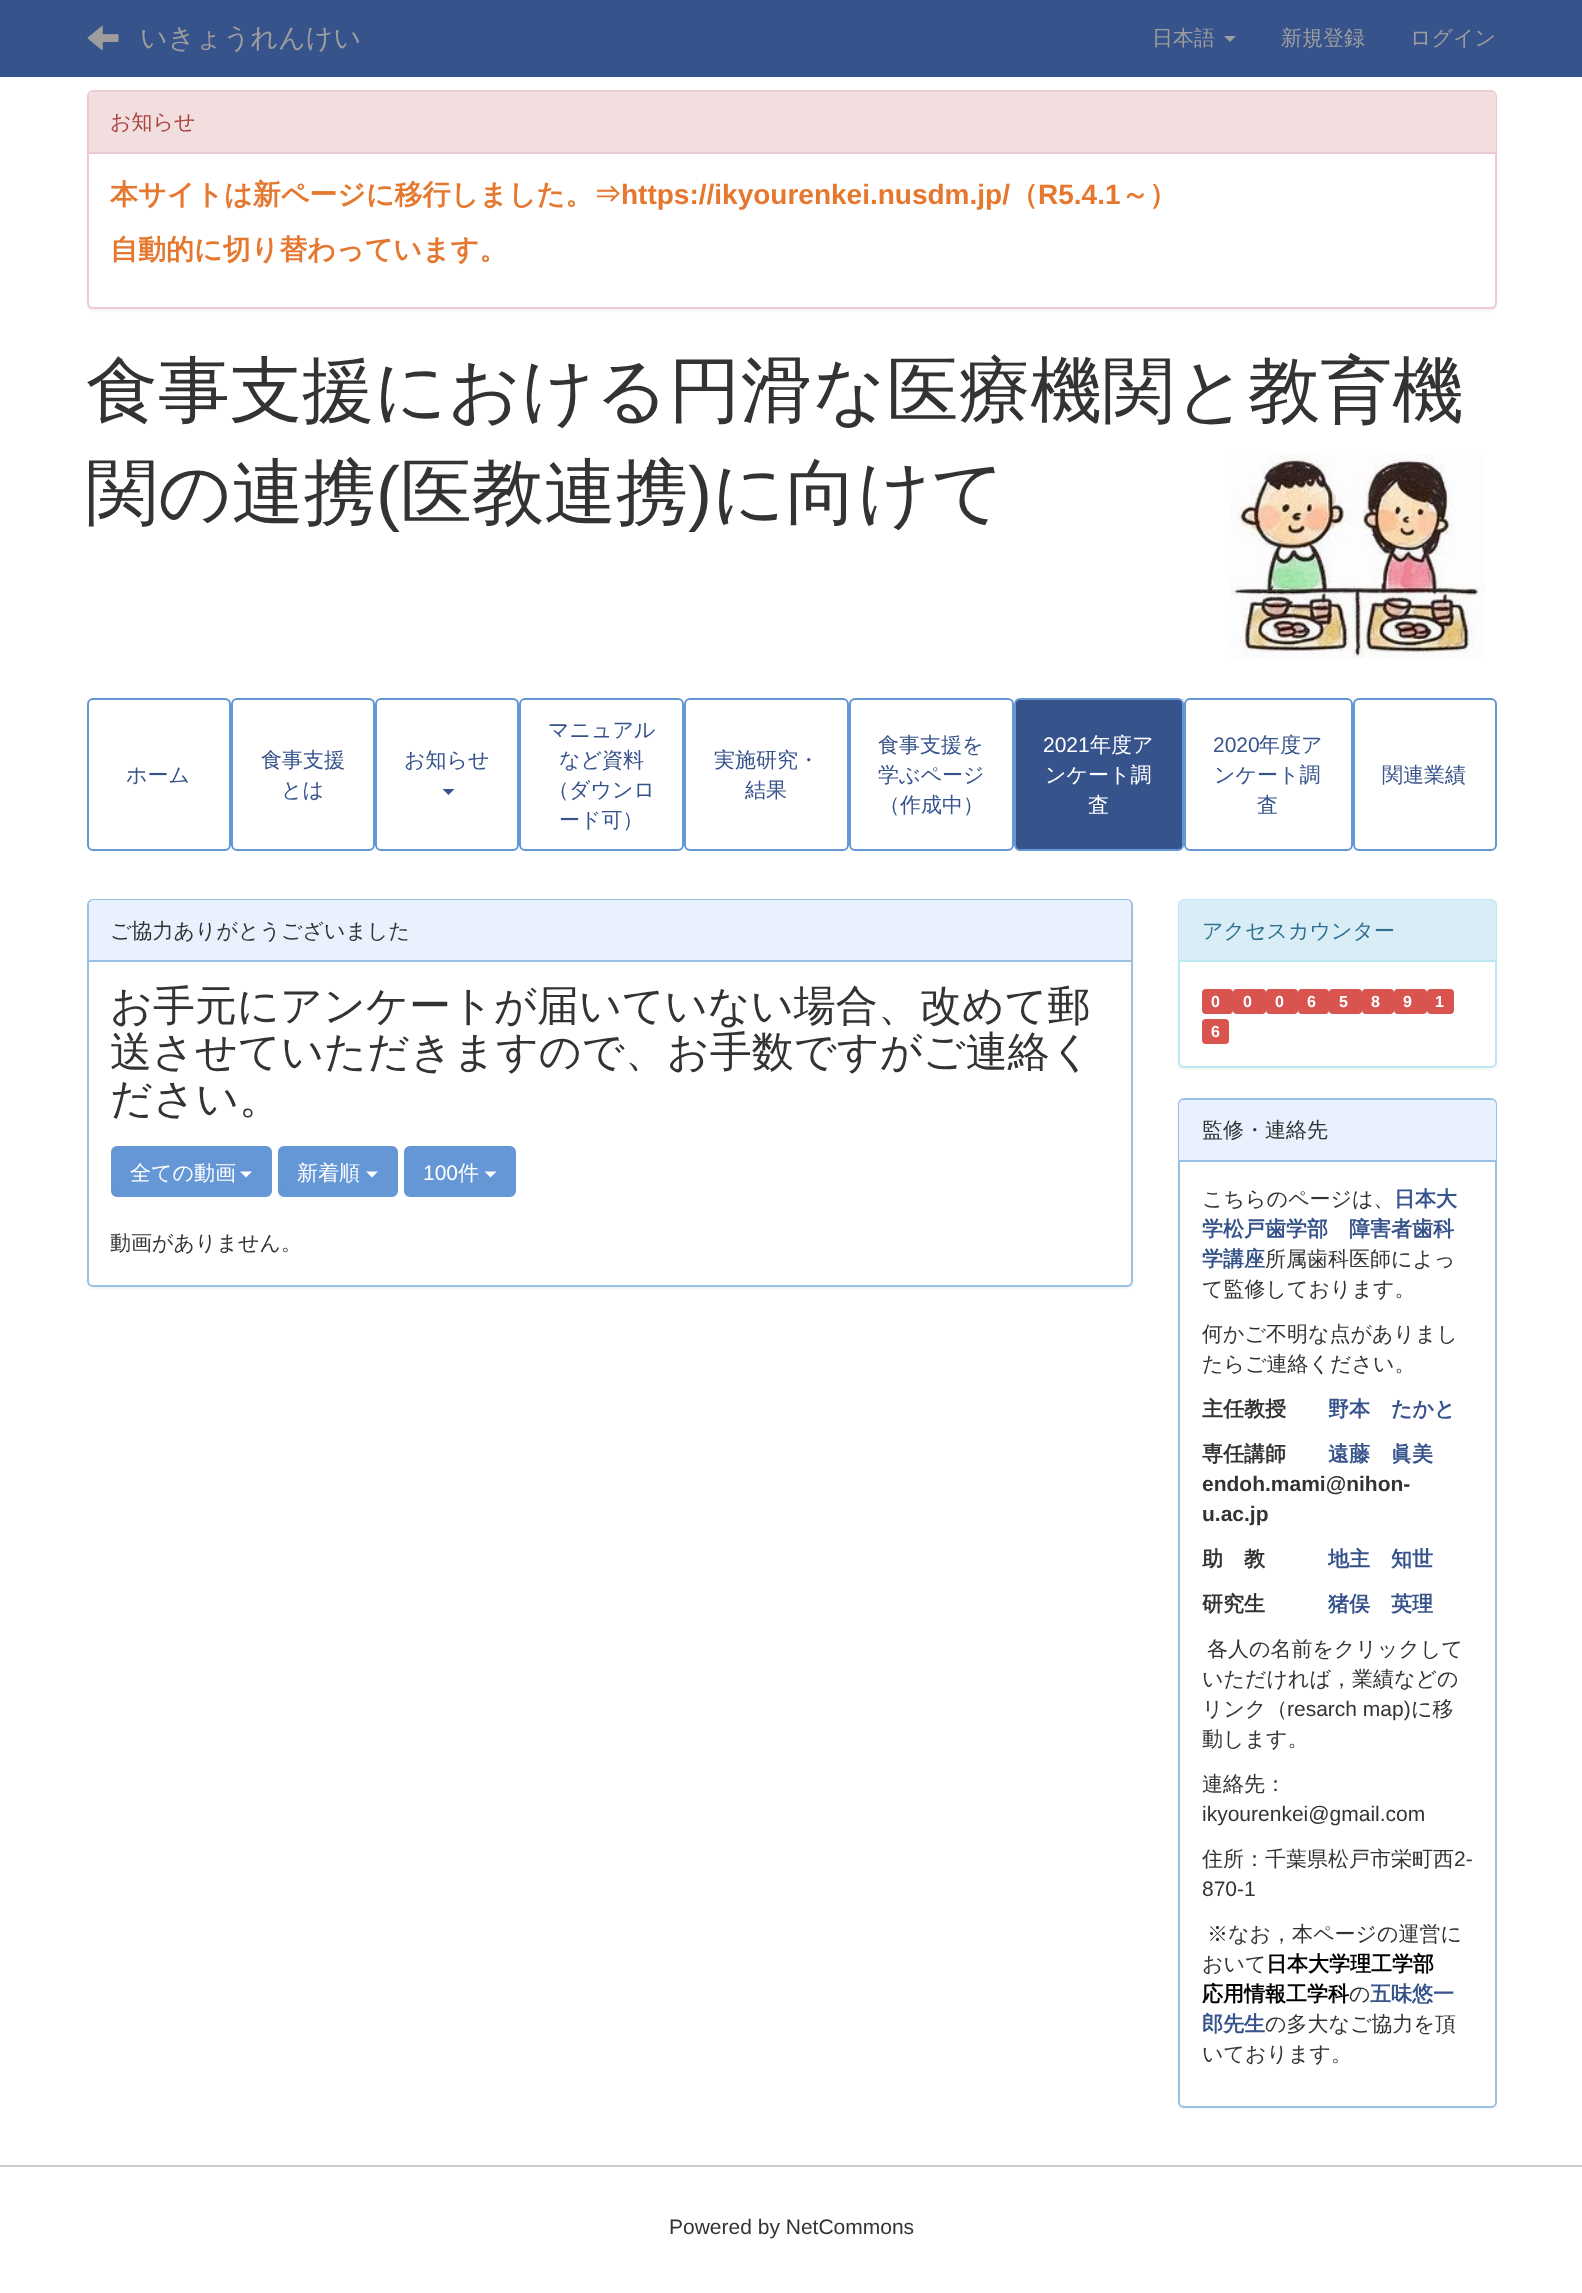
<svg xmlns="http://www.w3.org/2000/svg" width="1582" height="2293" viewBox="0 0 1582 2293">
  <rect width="100%" height="100%" fill="rgb(255,255,255)"/>
  <rect x="0" y="0" width="1582" height="77" fill="rgb(55,83,140)"/>
  <image x="87" y="25" width="32" height="26" href="pic1.png"/>
  <text x="140" y="47" font-family="WenQuanYi Zen Hei" font-size="27" font-weight="500" fill="rgb(157,157,157)">いきょうれんけい</text>
  <text x="1152" y="45" font-family="WenQuanYi Zen Hei" font-size="21" font-weight="500" fill="rgb(157,157,157)">日本語</text>
  <path d="M1224 36H1236L1230 42Z" fill="rgb(157,157,157)"/>
  <g font-family="WenQuanYi Zen Hei" font-size="21" font-weight="500" fill="rgb(157,157,157)">
    <text x="1281" y="45">新規登録</text>
    <text x="1410" y="45">ログイン</text>
  </g>
  <rect x="87" y="92" width="1410" height="219" rx="6" fill="rgba(0,0,0,0.05)" filter="blur(1px)"/>
  <rect x="88" y="91" width="1408" height="217" rx="5" fill="rgb(255,255,255)" stroke="rgb(235,204,209)" stroke-width="2"/>
  <path d="M94 92H1491C1494 92 1496 94 1496 97V153H89V97C89 94 91 92 94 92Z" fill="rgb(242,222,222)"/>
  <rect x="89" y="152" width="1407" height="2" fill="rgb(235,204,209)"/>
  <text x="110" y="129" font-family="WenQuanYi Zen Hei" font-size="21" font-weight="500" fill="rgb(169,68,66)">お知らせ</text>
  <text x="110" y="204" font-family="WenQuanYi Zen Hei" font-size="28" font-weight="bold" fill="rgb(229,119,46)">本サイトは新ページに移行しました。⇒</text>
  <text x="621" y="204" font-family="Liberation Sans" font-size="28" font-weight="bold" fill="rgb(229,119,46)">https://ikyourenkei.nusdm.jp/</text>
  <text x="1010" y="204" font-family="WenQuanYi Zen Hei" font-size="28" font-weight="bold" fill="rgb(229,119,46)">（</text>
  <text x="1038" y="204" font-family="Liberation Sans" font-size="28" font-weight="bold" fill="rgb(229,119,46)">R5.4.1</text>
  <g font-family="WenQuanYi Zen Hei" font-size="28" font-weight="bold" fill="rgb(229,119,46)">
    <text x="1121" y="204">～）</text>
    <text x="110" y="259">自動的に切り替わっています。</text>
  </g>
  <g font-family="WenQuanYi Zen Hei" font-size="72" font-weight="500" fill="rgb(51,51,51)">
    <text>
      <tspan x="86" y="415">食事支援における円滑な医療機関と教育機</tspan>
      <tspan x="86" y="517">関の連携</tspan>
    </text>
  </g>
  <text x="376" y="517" font-family="Liberation Sans" font-size="72" fill="rgb(51,51,51)">(</text>
  <text x="400" y="517" font-family="WenQuanYi Zen Hei" font-size="72" font-weight="500" fill="rgb(51,51,51)">医教連携</text>
  <text x="688" y="517" font-family="Liberation Sans" font-size="72" fill="rgb(51,51,51)">)</text>
  <text x="712" y="517" font-family="WenQuanYi Zen Hei" font-size="72" font-weight="500" fill="rgb(51,51,51)">に向けて</text>
  <image x="1230" y="454" width="255" height="205" href="pic2.png"/>
  <rect x="232" y="699" width="142" height="151" rx="5" fill="none" stroke="rgb(101,150,214)" stroke-width="2"/>
  <g font-family="WenQuanYi Zen Hei" font-size="21" font-weight="500" fill="rgb(55,83,140)">
    <text x="261" y="767">食事支援</text>
    <text x="281" y="797">とは</text>
  </g>
  <rect x="376" y="699" width="142" height="151" rx="5" fill="none" stroke="rgb(101,150,214)" stroke-width="2"/>
  <text x="404" y="767" font-family="WenQuanYi Zen Hei" font-size="21" font-weight="500" fill="rgb(55,83,140)">お知らせ</text>
  <path d="M442.5 789H454.5L448.5 795Z" fill="rgb(55,83,140)"/>
  <rect x="520" y="699" width="163" height="151" rx="5" fill="none" stroke="rgb(101,150,214)" stroke-width="2"/>
  <g font-family="WenQuanYi Zen Hei" font-size="21" font-weight="500" fill="rgb(55,83,140)">
    <text x="548" y="737">マニュアル</text>
    <text x="559" y="767">など資料</text>
    <text x="548" y="797">（ダウンロ</text>
    <text x="559" y="827">ード可）</text>
  </g>
  <rect x="685" y="699" width="163" height="151" rx="5" fill="none" stroke="rgb(101,150,214)" stroke-width="2"/>
  <g font-family="WenQuanYi Zen Hei" font-size="21" font-weight="500" fill="rgb(55,83,140)">
    <text x="714" y="767">実施研究・</text>
    <text x="745" y="797">結果</text>
  </g>
  <rect x="850" y="699" width="163" height="151" rx="5" fill="none" stroke="rgb(101,150,214)" stroke-width="2"/>
  <g font-family="WenQuanYi Zen Hei" font-size="21" font-weight="500" fill="rgb(55,83,140)">
    <text>
      <tspan x="878" y="752">食事支援を</tspan>
      <tspan x="878" y="782">学ぶページ</tspan>
    </text>
    <text x="879" y="812">（作成中）</text>
  </g>
  <rect x="1015" y="699" width="168" height="151" rx="5" fill="rgb(55,83,140)" stroke="rgb(101,150,214)" stroke-width="2"/>
  <text x="1043" y="752" font-family="Liberation Sans" font-size="21" fill="rgb(255,255,255)">2021</text>
  <g font-family="WenQuanYi Zen Hei" font-size="21" font-weight="500" fill="rgb(255,255,255)">
    <text x="1090" y="752">年度ア</text>
    <text x="1045" y="782">ンケート調</text>
    <text x="1088" y="812">査</text>
  </g>
  <rect x="1185" y="699" width="167" height="151" rx="5" fill="none" stroke="rgb(101,150,214)" stroke-width="2"/>
  <text x="1213" y="752" font-family="Liberation Sans" font-size="21" fill="rgb(55,83,140)">2020</text>
  <g font-family="WenQuanYi Zen Hei" font-size="21" font-weight="500" fill="rgb(55,83,140)">
    <text x="1259" y="752">年度ア</text>
    <text x="1214" y="782">ンケート調</text>
    <text x="1257" y="812">査</text>
  </g>
  <rect x="88" y="699" width="142" height="151" rx="5" fill="none" stroke="rgb(101,150,214)" stroke-width="2"/>
  <text x="126" y="782" font-family="WenQuanYi Zen Hei" font-size="21" font-weight="500" fill="rgb(55,83,140)">ホーム</text>
  <rect x="1354" y="699" width="142" height="151" rx="5" fill="none" stroke="rgb(101,150,214)" stroke-width="2"/>
  <text x="1382" y="782" font-family="WenQuanYi Zen Hei" font-size="21" font-weight="500" fill="rgb(55,83,140)">関連業績</text>
  <rect x="87" y="900" width="1046" height="389" rx="6" fill="rgba(0,0,0,0.05)" filter="blur(1px)"/>
  <rect x="88" y="900" width="1044" height="386" rx="5" fill="rgb(255,255,255)" stroke="rgb(151,193,229)" stroke-width="2"/>
  <path d="M94 900H1126C1129 900 1131 902 1131 905V962H89V905C89 902 91 900 94 900Z" fill="rgb(233,241,255)"/>
  <rect x="89" y="960" width="1042" height="2" fill="rgb(151,193,229)"/>
  <text x="110" y="938" font-family="WenQuanYi Zen Hei" font-size="21" font-weight="500" fill="rgb(51,51,51)">ご協力ありがとうございました</text>
  <g font-family="WenQuanYi Zen Hei" font-size="42" font-weight="500" fill="rgb(51,51,51)">
    <text>
      <tspan x="110" y="1020">お手元にアンケートが届いていない場合、改めて郵</tspan>
      <tspan x="110" y="1066">送させていただきますので、お手数ですがご連絡く</tspan>
      <tspan x="110" y="1113">ださい。</tspan>
    </text>
  </g>
  <rect x="112" y="1147" width="159" height="49" rx="5" fill="rgb(101,150,214)" stroke="rgb(101,150,214)" stroke-width="2"/>
  <text x="130" y="1180" font-family="WenQuanYi Zen Hei" font-size="21" font-weight="500" fill="rgb(255,255,255)">全ての動画</text>
  <path d="M240 1171.5H252L246 1177.5Z" fill="rgb(255,255,255)"/>
  <rect x="279" y="1147" width="118" height="49" rx="5" fill="rgb(101,150,214)" stroke="rgb(101,150,214)" stroke-width="2"/>
  <text x="297" y="1180" font-family="WenQuanYi Zen Hei" font-size="21" font-weight="500" fill="rgb(255,255,255)">新着順</text>
  <path d="M366 1171.5H378L372 1177.5Z" fill="rgb(255,255,255)"/>
  <rect x="405" y="1147" width="110" height="49" rx="5" fill="rgb(101,150,214)" stroke="rgb(101,150,214)" stroke-width="2"/>
  <text x="423" y="1180" font-family="Liberation Sans" font-size="21" fill="rgb(255,255,255)">100</text>
  <text x="458" y="1180" font-family="WenQuanYi Zen Hei" font-size="21" font-weight="500" fill="rgb(255,255,255)">件</text>
  <path d="M484.5 1171.5H496.5L490.5 1177.5Z" fill="rgb(255,255,255)"/>
  <text x="110" y="1250" font-family="WenQuanYi Zen Hei" font-size="21" font-weight="500" fill="rgb(51,51,51)">動画がありません。</text>
  <rect x="1178" y="900" width="319" height="170" rx="6" fill="rgba(0,0,0,0.05)" filter="blur(1px)"/>
  <rect x="1179" y="900" width="317" height="167" rx="5" fill="rgb(255,255,255)" stroke="rgb(188,232,241)" stroke-width="2"/>
  <path d="M1184 900H1491C1494 900 1496 902 1496 905V962H1179V905C1179 902 1181 900 1184 900Z" fill="rgb(217,237,247)"/>
  <rect x="1179" y="960" width="317" height="2" fill="rgb(188,232,241)"/>
  <text x="1202" y="938" font-family="WenQuanYi Zen Hei" font-size="21" font-weight="500" fill="rgb(49,112,143)">アクセスカウンター</text>
  <rect x="1202" y="989" width="31" height="25" rx="4" fill="rgb(217,83,79)"/>
  <text x="1211" y="1007" font-family="Liberation Sans" font-size="16" font-weight="bold" fill="rgb(255,255,255)">0</text>
  <rect x="1233" y="989" width="33" height="25" rx="4" fill="rgb(217,83,79)"/>
  <text x="1243" y="1007" font-family="Liberation Sans" font-size="16" font-weight="bold" fill="rgb(255,255,255)">0</text>
  <rect x="1266" y="989" width="32" height="25" rx="4" fill="rgb(217,83,79)"/>
  <text x="1275" y="1007" font-family="Liberation Sans" font-size="16" font-weight="bold" fill="rgb(255,255,255)">0</text>
  <rect x="1298" y="989" width="31" height="25" rx="4" fill="rgb(217,83,79)"/>
  <text x="1307" y="1007" font-family="Liberation Sans" font-size="16" font-weight="bold" fill="rgb(255,255,255)">6</text>
  <rect x="1329" y="989" width="33" height="25" rx="4" fill="rgb(217,83,79)"/>
  <text x="1339" y="1007" font-family="Liberation Sans" font-size="16" font-weight="bold" fill="rgb(255,255,255)">5</text>
  <rect x="1362" y="989" width="32" height="25" rx="4" fill="rgb(217,83,79)"/>
  <text x="1371" y="1007" font-family="Liberation Sans" font-size="16" font-weight="bold" fill="rgb(255,255,255)">8</text>
  <rect x="1394" y="989" width="33" height="25" rx="4" fill="rgb(217,83,79)"/>
  <text x="1403" y="1007" font-family="Liberation Sans" font-size="16" font-weight="bold" fill="rgb(255,255,255)">9</text>
  <rect x="1427" y="989" width="27" height="25" rx="4" fill="rgb(217,83,79)"/>
  <text x="1435" y="1007" font-family="Liberation Sans" font-size="16" font-weight="bold" fill="rgb(255,255,255)">1</text>
  <rect x="1202" y="1019" width="27" height="25" rx="4" fill="rgb(217,83,79)"/>
  <text x="1211" y="1037" font-family="Liberation Sans" font-size="16" font-weight="bold" fill="rgb(255,255,255)">6</text>
  <rect x="1178" y="1100" width="319" height="1009" rx="6" fill="rgba(0,0,0,0.05)" filter="blur(1px)"/>
  <rect x="1179" y="1099" width="317" height="1008" rx="5" fill="rgb(255,255,255)" stroke="rgb(151,193,229)" stroke-width="2"/>
  <path d="M1184 1100H1491C1494 1100 1496 1102 1496 1105V1161H1179V1105C1179 1102 1181 1100 1184 1100Z" fill="rgb(233,241,255)"/>
  <rect x="1179" y="1160" width="317" height="2" fill="rgb(151,193,229)"/>
  <g font-family="WenQuanYi Zen Hei" font-size="21" font-weight="500" fill="rgb(51,51,51)">
    <text x="1202" y="1137">監修・連絡先</text>
    <text x="1202" y="1206">こちらのページは、</text>
  </g>
  <g font-family="WenQuanYi Zen Hei" font-size="21" font-weight="bold" fill="rgb(55,83,140)">
    <text x="1394" y="1206">日本大</text>
    <text>
      <tspan x="1202" y="1236">学松戸歯学部　障害者歯科</tspan>
      <tspan x="1202" y="1266">学講座</tspan>
    </text>
  </g>
  <g font-family="WenQuanYi Zen Hei" font-size="21" font-weight="500" fill="rgb(51,51,51)">
    <text x="1265" y="1266">所属歯科医師によっ</text>
    <text x="1202" y="1296">て監修しております。</text>
    <text>
      <tspan x="1202" y="1341">何かご不明な点がありまし</tspan>
      <tspan x="1202" y="1371">たらご連絡ください。</tspan>
    </text>
  </g>
  <text x="1202" y="1416" font-family="WenQuanYi Zen Hei" font-size="21" font-weight="bold" fill="rgb(51,51,51)">主任教授</text>
  <text x="1328" y="1416" font-family="WenQuanYi Zen Hei" font-size="21" font-weight="bold" fill="rgb(55,83,140)">野本　たかと</text>
  <text x="1202" y="1461" font-family="WenQuanYi Zen Hei" font-size="21" font-weight="bold" fill="rgb(51,51,51)">専任講師</text>
  <text x="1328" y="1461" font-family="WenQuanYi Zen Hei" font-size="21" font-weight="bold" fill="rgb(55,83,140)">遠藤　眞美</text>
  <g font-family="Liberation Sans" font-size="21" font-weight="bold" fill="rgb(51,51,51)">
    <text>
      <tspan x="1202" y="1491">endoh.mami@nihon-</tspan>
      <tspan x="1202" y="1521">u.ac.jp</tspan>
    </text>
  </g>
  <text x="1202" y="1566" font-family="WenQuanYi Zen Hei" font-size="21" font-weight="bold" fill="rgb(51,51,51)">助　教</text>
  <text x="1328" y="1566" font-family="WenQuanYi Zen Hei" font-size="21" font-weight="bold" fill="rgb(55,83,140)">地主　知世</text>
  <text x="1202" y="1611" font-family="WenQuanYi Zen Hei" font-size="21" font-weight="bold" fill="rgb(51,51,51)">研究生</text>
  <text x="1328" y="1611" font-family="WenQuanYi Zen Hei" font-size="21" font-weight="bold" fill="rgb(55,83,140)">猪俣　英理</text>
  <g font-family="WenQuanYi Zen Hei" font-size="21" font-weight="500" fill="rgb(51,51,51)">
    <text x="1207" y="1656">各人の名前をクリックして</text>
    <text>
      <tspan x="1202" y="1686">いただければ，業績などの</tspan>
      <tspan x="1202" y="1716">リンク（</tspan>
    </text>
  </g>
  <text x="1287" y="1716" font-family="Liberation Sans" font-size="21" fill="rgb(51,51,51)">resarch map)</text>
  <g font-family="WenQuanYi Zen Hei" font-size="21" font-weight="500" fill="rgb(51,51,51)">
    <text x="1411" y="1716">に移</text>
    <text x="1202" y="1746">動します。</text>
    <text x="1202" y="1791">連絡先：</text>
  </g>
  <text x="1202" y="1821" font-family="Liberation Sans" font-size="21" fill="rgb(51,51,51)">ikyourenkei@gmail.com</text>
  <text x="1202" y="1866" font-family="WenQuanYi Zen Hei" font-size="21" font-weight="500" fill="rgb(51,51,51)">住所：千葉県松戸市栄町西</text>
  <g font-family="Liberation Sans" font-size="21" fill="rgb(51,51,51)">
    <text x="1454" y="1866">2‐</text>
    <text x="1202" y="1896">870‐1</text>
  </g>
  <g font-family="WenQuanYi Zen Hei" font-size="21" font-weight="500" fill="rgb(51,51,51)">
    <text x="1207" y="1941">※なお，本ページの運営に</text>
    <text x="1202" y="1971">おいて</text>
  </g>
  <g font-family="WenQuanYi Zen Hei" font-size="21" font-weight="bold" fill="rgb(0,0,0)">
    <text x="1266" y="1971">日本大学理工学部</text>
    <text x="1202" y="2001">応用情報工学科</text>
  </g>
  <text x="1349" y="2001" font-family="WenQuanYi Zen Hei" font-size="21" font-weight="500" fill="rgb(51,51,51)">の</text>
  <g font-family="WenQuanYi Zen Hei" font-size="21" font-weight="bold" fill="rgb(55,83,140)">
    <text x="1370" y="2001">五味悠一</text>
    <text x="1202" y="2031">郎先生</text>
  </g>
  <g font-family="WenQuanYi Zen Hei" font-size="21" font-weight="500" fill="rgb(51,51,51)">
    <text x="1265" y="2031">の多大なご協力を頂</text>
    <text x="1202" y="2061">いております。</text>
  </g>
  <rect x="0" y="2165" width="1582" height="2" fill="rgb(204,204,204)"/>
  <text x="669" y="2234" font-family="Liberation Sans" font-size="21" fill="rgb(51,51,51)">Powered by NetCommons</text>
</svg>
